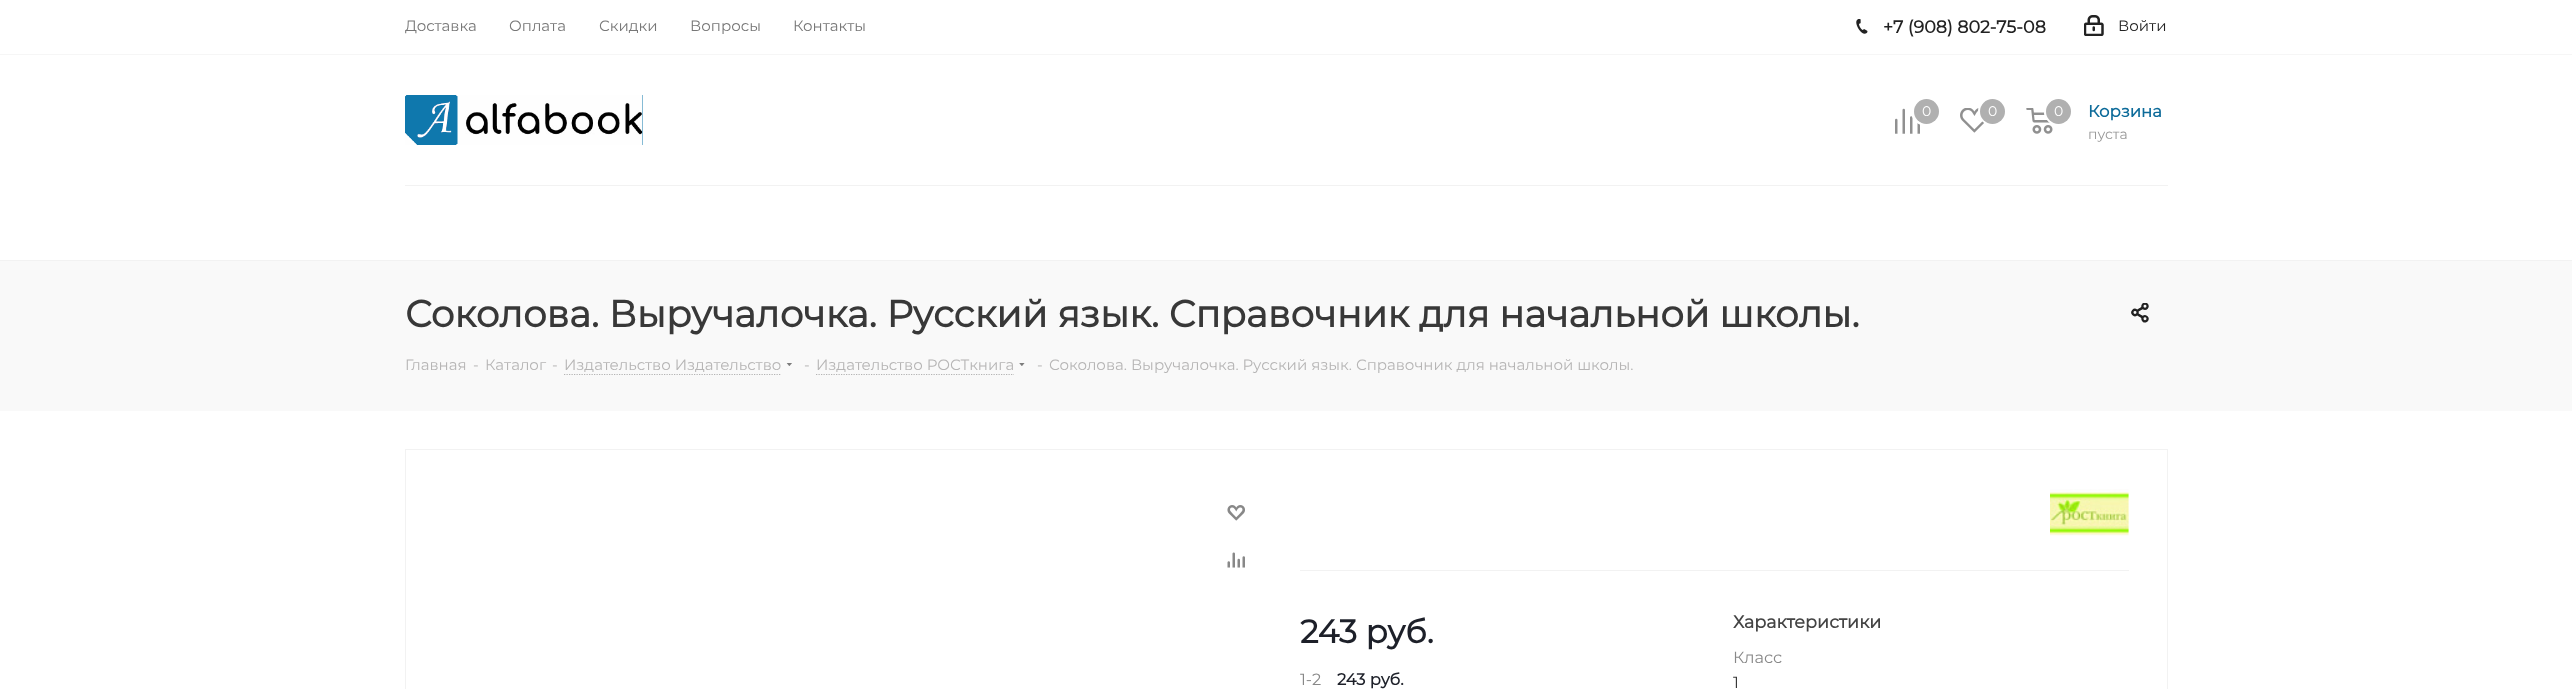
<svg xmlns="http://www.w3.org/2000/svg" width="2572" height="689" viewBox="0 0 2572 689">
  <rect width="100%" height="100%" fill="rgb(255,255,255)"/>
  <rect x="0" y="54" width="2572" height="1" fill="rgb(246,246,246)"/>
  <g font-family="Montserrat" font-size="15" font-weight="100" fill="rgb(119,119,119)">
    <text x="405" y="31">Доставка</text>
    <text x="509" y="31">Оплата</text>
    <text x="599" y="31">Скидки</text>
    <text x="690" y="31">Вопросы</text>
    <text x="793" y="31">Контакты</text>
  </g>
  <image x="1856" y="19" width="12" height="15" href="pic1.png"/>
  <text x="1883" y="33" font-family="Montserrat" font-size="17.5" font-weight="bold" fill="rgb(34,34,34)">+7 (908) 802-75-08</text>
  <image x="2084" y="15" width="20" height="21" href="pic2.png"/>
  <text x="2118" y="31" font-family="Montserrat" font-size="15" font-weight="100" fill="rgb(34,34,34)">Войти</text>
  <rect x="405" y="95" width="238" height="50" fill="rgb(15,120,173)"/>
  <image x="405" y="95" width="238" height="50" href="pic3.png"/>
  <image x="1895" y="108" width="25" height="26" href="pic4.png"/>
  <circle cx="1926" cy="111" r="13.5" fill="none" stroke="rgb(255,255,255)" stroke-width="3"/>
  <circle cx="1926.5" cy="111.5" r="12.5" fill="rgb(176,176,176)"/>
  <text x="1922" y="116" font-family="Montserrat" font-size="14" font-weight="100" fill="rgb(255,255,255)">0</text>
  <image x="1960" y="108" width="24" height="25" href="pic5.png"/>
  <circle cx="1993" cy="111" r="13.5" fill="none" stroke="rgb(255,255,255)" stroke-width="3"/>
  <circle cx="1992.5" cy="111.5" r="12.5" fill="rgb(176,176,176)"/>
  <text x="1988" y="116" font-family="Montserrat" font-size="14" font-weight="100" fill="rgb(255,255,255)">0</text>
  <image x="2026" y="108" width="27" height="26" href="pic6.png"/>
  <circle cx="2059" cy="111" r="13.5" fill="none" stroke="rgb(255,255,255)" stroke-width="3"/>
  <circle cx="2059" cy="111" r="13.5" fill="none" stroke="rgb(255,255,255)" stroke-width="3"/>
  <circle cx="2058.5" cy="111.5" r="12.5" fill="rgb(176,176,176)"/>
  <text x="2054" y="116" font-family="Montserrat" font-size="14" font-weight="100" fill="rgb(255,255,255)">0</text>
  <text x="2088" y="117" font-family="Montserrat" font-size="16.5" font-weight="bold" fill="rgb(13,107,154)">Корзина</text>
  <text x="2088" y="139" font-family="Montserrat" font-size="14" font-weight="100" fill="rgb(153,153,153)">пуста</text>
  <rect x="0" y="260" width="2572" height="1" fill="rgb(242,242,242)"/>
  <rect x="405" y="185" width="1763" height="1" fill="rgb(242,242,242)"/>
  <rect x="0" y="261" width="2572" height="150" fill="rgb(249,249,249)"/>
  <text x="405" y="327" font-family="Montserrat" font-size="37.35" font-weight="bold" fill="rgb(56,56,56)">Соколова. Выручалочка. Русский язык. Справочник для начальной школы.</text>
  <image x="2131" y="303" width="18" height="20" href="pic7.png"/>
  <g font-family="Montserrat" font-size="15" font-weight="100" fill="rgb(182,181,181)">
    <text x="405" y="370">Главная</text>
    <text x="473" y="370">-</text>
    <text x="485" y="370">Каталог</text>
    <text x="552" y="370">-</text>
    <text x="564" y="370">Издательство Издательство</text>
  </g>
  <path d="M564 374.5H781" fill="none" stroke="rgb(180,180,180)" stroke-width="1.2" stroke-dasharray="1.25 1.25"/>
  <image x="786" y="363" width="6" height="3" href="pic8.png"/>
  <g font-family="Montserrat" font-size="15" font-weight="100" fill="rgb(182,181,181)">
    <text x="804" y="370">-</text>
    <text x="816" y="370">Издательство РОСТкнига</text>
  </g>
  <path d="M816 374.5H1014" fill="none" stroke="rgb(180,180,180)" stroke-width="1.2" stroke-dasharray="1.25 1.25"/>
  <image x="1019" y="363" width="6" height="3" href="pic9.png"/>
  <g font-family="Montserrat" font-size="15" font-weight="100" fill="rgb(182,181,181)">
    <text x="1037" y="370">-</text>
    <text x="1049" y="370">Соколова. Выручалочка. Русский язык. Справочник для начальной школы.</text>
  </g>
  <rect x="405.5" y="449.5" width="1762" height="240" fill="none" stroke="rgb(242,242,242)"/>
  <image x="1227" y="505" width="18" height="16" href="pic10.png"/>
  <image x="1227" y="552" width="18" height="16" href="pic11.png"/>
  <rect x="1300" y="570" width="829" height="1" fill="rgb(242,242,242)"/>
  <image x="2050" y="489" width="79" height="47" href="pic12.png"/>
  <text x="1300" y="643" font-family="Montserrat" font-size="32.5" font-weight="bold" fill="rgb(29,32,41)">243 руб.</text>
  <text x="1300" y="685" font-family="Montserrat" font-size="16.25" font-weight="100" fill="rgb(136,136,136)">1-2</text>
  <text x="1337" y="685" font-family="Montserrat" font-size="16.25" font-weight="bold" fill="rgb(29,32,41)">243 руб.</text>
  <text x="1733" y="628" font-family="Montserrat" font-size="17.5" font-weight="bold" fill="rgb(68,68,68)">Характеристики</text>
  <text x="1733" y="663" font-family="Montserrat" font-size="16.25" font-weight="100" fill="rgb(136,136,136)">Класс</text>
  <text x="1733" y="688" font-family="Montserrat" font-size="16.25" font-weight="100" fill="rgb(56,56,56)">1</text>
</svg>
